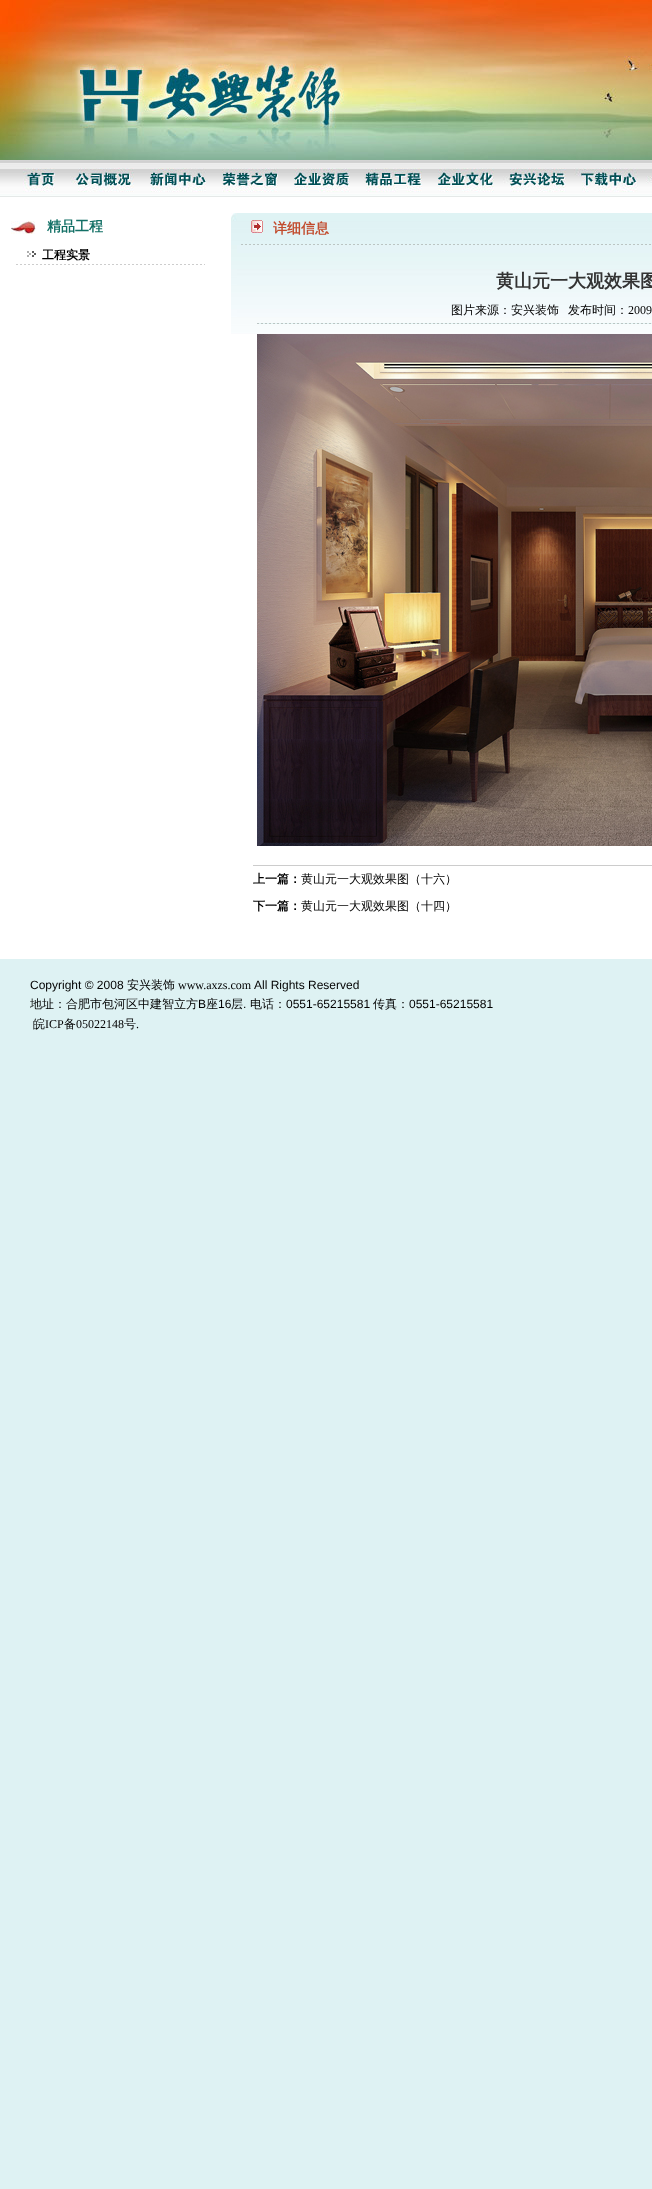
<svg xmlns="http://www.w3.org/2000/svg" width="652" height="2189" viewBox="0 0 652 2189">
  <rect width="100%" height="100%" fill="rgb(222,242,243)"/>
  <image x="0" y="0" width="652" height="160" href="pic1.png"/>
  <image x="0" y="160" width="652" height="37" href="pic2.png"/>
  <image x="23" y="168" width="32" height="24" href="pic3.png"/>
  <image x="70" y="168" width="64" height="24" href="pic4.png"/>
  <image x="150" y="168" width="56" height="24" href="pic5.png"/>
  <image x="222" y="168" width="56" height="24" href="pic6.png"/>
  <image x="294" y="168" width="56" height="24" href="pic7.png"/>
  <image x="363" y="168" width="59" height="24" href="pic8.png"/>
  <image x="438" y="168" width="56" height="24" href="pic9.png"/>
  <image x="503" y="168" width="63" height="24" href="pic10.png"/>
  <image x="574" y="168" width="64" height="24" href="pic11.png"/>
  <image x="646" y="176" width="6" height="8" href="pic12.png"/>
  <rect x="0" y="197" width="652" height="762" fill="rgb(255,255,255)"/>
  <image x="11" y="221" width="25" height="13" href="pic13.png"/>
  <text x="47" y="231" font-family="WenQuanYi Zen Hei" font-size="14" font-weight="bold" fill="rgb(19,112,102)">精品工程</text>
  <image x="16" y="264" width="189" height="1" href="pic14.png"/>
  <image x="27" y="251" width="9" height="6" href="pic15.png"/>
  <text x="42" y="259" font-family="WenQuanYi Zen Hei" font-size="12" font-weight="bold" fill="rgb(0,0,0)">工程实景</text>
  <image x="231" y="213" width="6" height="121" href="pic16.png"/>
  <image x="237" y="213" width="415" height="121" href="pic17.png"/>
  <image x="251" y="220" width="12" height="13" href="pic18.png"/>
  <text x="273" y="233" font-family="WenQuanYi Zen Hei" font-size="14" font-weight="bold" fill="rgb(194,76,46)">详细信息</text>
  <image x="241" y="244" width="410" height="1" href="pic19.png"/>
  <text x="496" y="287" font-family="WenQuanYi Zen Hei" font-size="18" font-weight="bold" fill="rgb(51,51,51)">黄山元一大观效果图</text>
  <g font-family="WenQuanYi Zen Hei" font-size="12" font-weight="500" fill="rgb(0,0,0)">
    <text x="451" y="314">图片来源：安兴装饰</text>
    <text x="568" y="314">发布时间：</text>
  </g>
  <text x="628" y="314" font-family="Liberation Serif" font-size="12" fill="rgb(0,0,0)">2009</text>
  <image x="257" y="323" width="395" height="1" href="pic20.png"/>
  <image x="257" y="334" width="395" height="512" href="pic21.png"/>
  <rect x="253" y="865" width="399" height="1" fill="rgb(204,204,204)"/>
  <text x="253" y="883" font-family="WenQuanYi Zen Hei" font-size="12" font-weight="bold" fill="rgb(0,0,0)">上一篇：</text>
  <text x="301" y="883" font-family="WenQuanYi Zen Hei" font-size="12" font-weight="500" fill="rgb(0,0,0)">黄山元一大观效果图（十六）</text>
  <text x="253" y="910" font-family="WenQuanYi Zen Hei" font-size="12" font-weight="bold" fill="rgb(0,0,0)">下一篇：</text>
  <text x="301" y="910" font-family="WenQuanYi Zen Hei" font-size="12" font-weight="500" fill="rgb(0,0,0)">黄山元一大观效果图（十四）</text>
  <text x="30" y="989" font-family="Liberation Sans" font-size="12" fill="rgb(0,0,0)">Copyright © 2008</text>
  <text x="127" y="989" font-family="WenQuanYi Zen Hei" font-size="12" font-weight="500" fill="rgb(0,0,0)">安兴装饰</text>
  <text x="178" y="989" font-family="Liberation Serif" font-size="12" fill="rgb(0,0,0)">www.axzs.com</text>
  <text x="254" y="989" font-family="Liberation Sans" font-size="12" fill="rgb(0,0,0)">All Rights Reserved</text>
  <text x="30" y="1008" font-family="WenQuanYi Zen Hei" font-size="12" font-weight="500" fill="rgb(0,0,0)">地址：合肥市包河区中建智立方</text>
  <text x="198" y="1008" font-family="Liberation Sans" font-size="12" fill="rgb(0,0,0)">B</text>
  <text x="206" y="1008" font-family="WenQuanYi Zen Hei" font-size="12" font-weight="500" fill="rgb(0,0,0)">座</text>
  <text x="218" y="1008" font-family="Liberation Sans" font-size="12" fill="rgb(0,0,0)">16</text>
  <text x="231" y="1008" font-family="WenQuanYi Zen Hei" font-size="12" font-weight="500" fill="rgb(0,0,0)">层</text>
  <text x="243" y="1008" font-family="Liberation Sans" font-size="12" fill="rgb(0,0,0)">.</text>
  <text x="250" y="1008" font-family="WenQuanYi Zen Hei" font-size="12" font-weight="500" fill="rgb(0,0,0)">电话：</text>
  <text x="286" y="1008" font-family="Liberation Sans" font-size="12" fill="rgb(0,0,0)">0551-65215581</text>
  <text x="373" y="1008" font-family="WenQuanYi Zen Hei" font-size="12" font-weight="500" fill="rgb(0,0,0)">传真：</text>
  <text x="409" y="1008" font-family="Liberation Sans" font-size="12" fill="rgb(0,0,0)">0551-65215581</text>
  <text x="33" y="1028" font-family="WenQuanYi Zen Hei" font-size="12" font-weight="500" fill="rgb(0,0,0)">皖</text>
  <text x="45" y="1028" font-family="Liberation Serif" font-size="12" fill="rgb(0,0,0)">ICP</text>
  <text x="64" y="1028" font-family="WenQuanYi Zen Hei" font-size="12" font-weight="500" fill="rgb(0,0,0)">备</text>
  <text x="76" y="1028" font-family="Liberation Serif" font-size="12" fill="rgb(0,0,0)">05022148</text>
  <text x="124" y="1028" font-family="WenQuanYi Zen Hei" font-size="12" font-weight="500" fill="rgb(0,0,0)">号</text>
  <text x="136" y="1028" font-family="Liberation Serif" font-size="12" fill="rgb(0,0,0)">.</text>
</svg>
